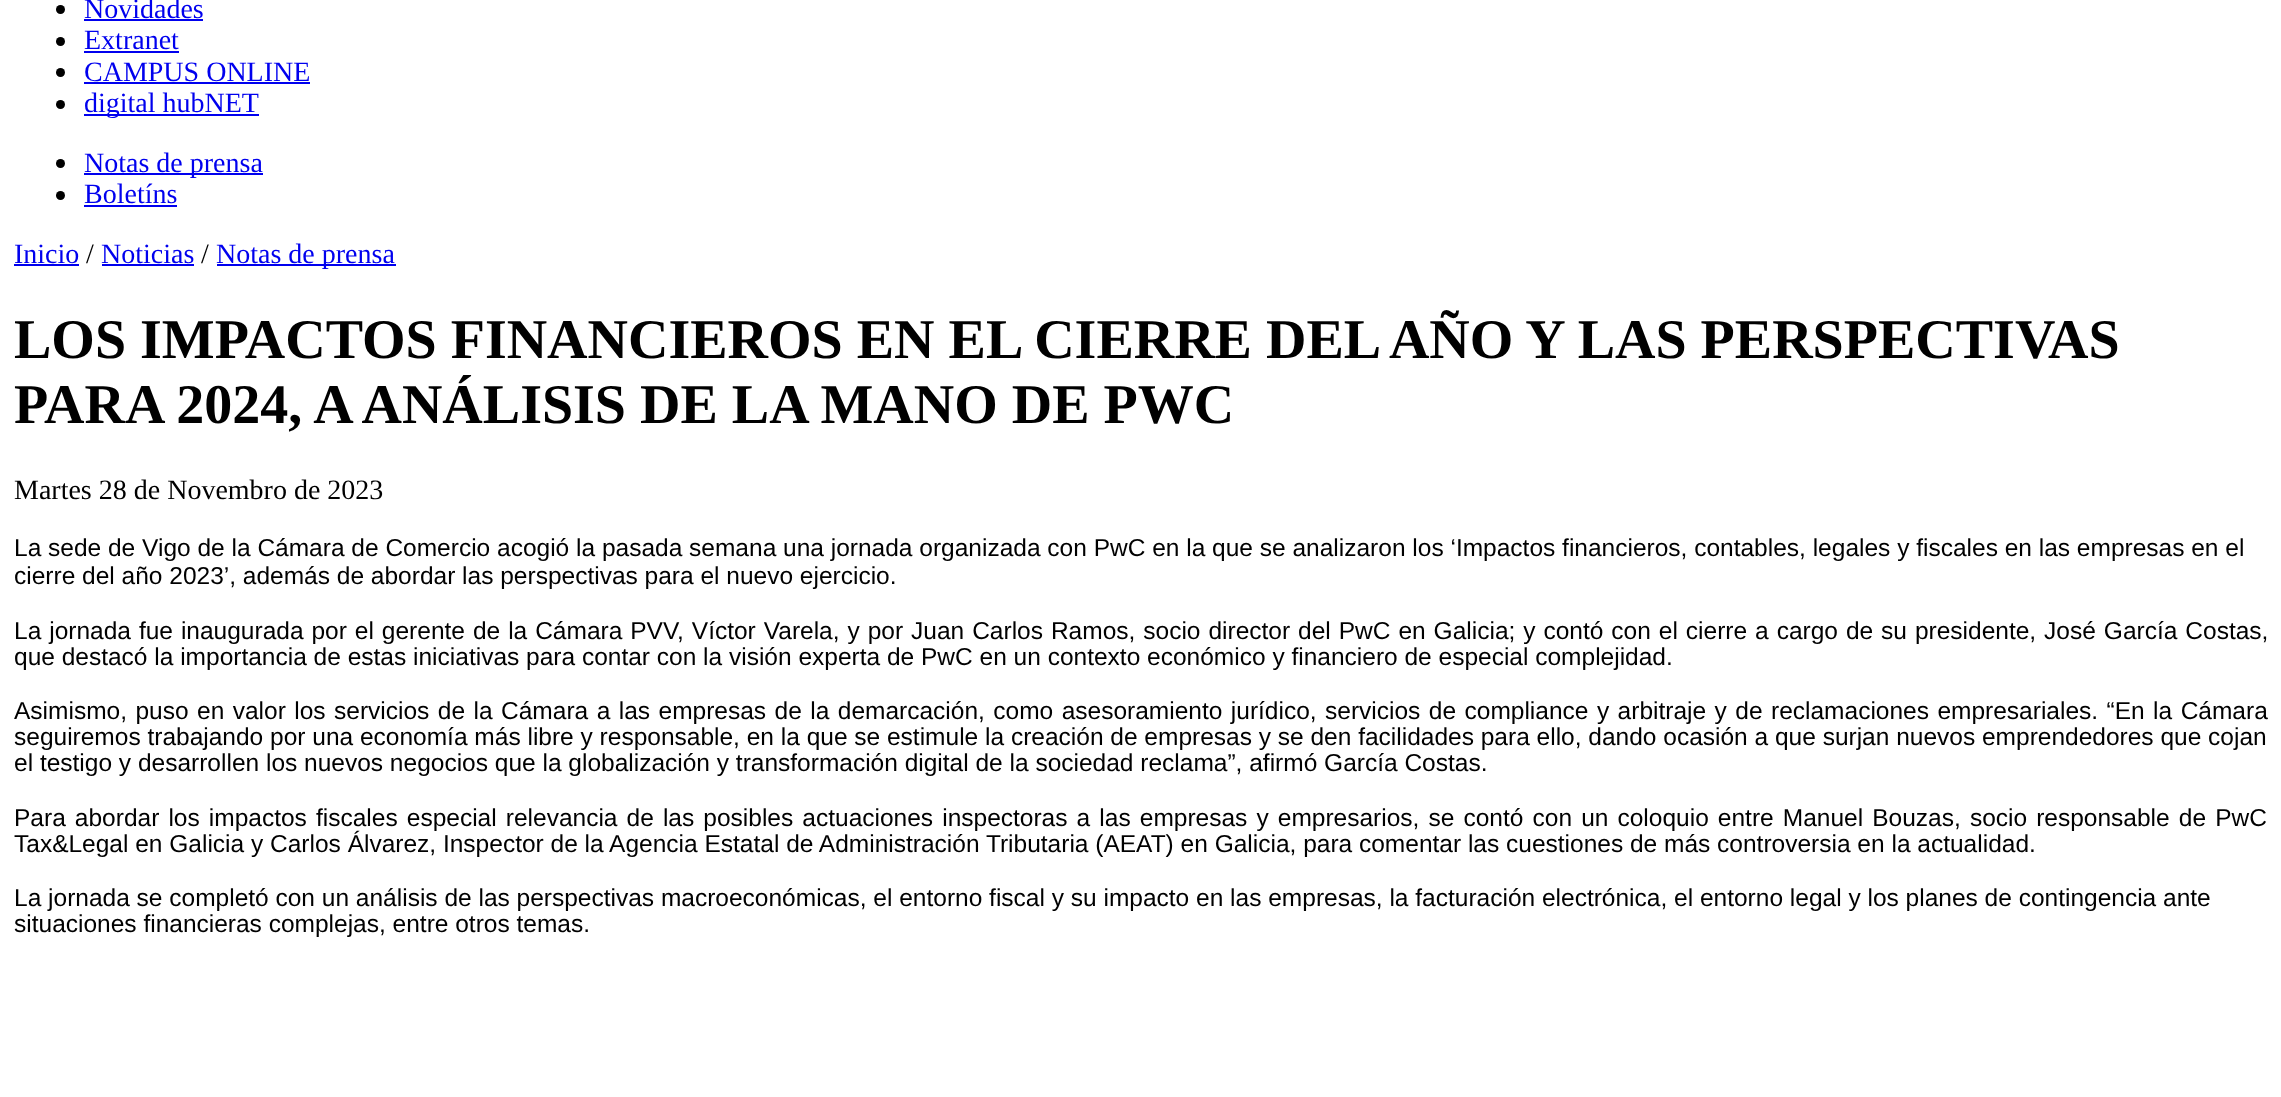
<svg xmlns="http://www.w3.org/2000/svg" width="2281" height="1097" viewBox="0 0 2281 1097">
  <rect width="100%" height="100%" fill="rgb(255,255,255)"/>
  <circle cx="60.5" cy="9.5" r="4.5" fill="rgb(0,0,0)"/>
  <text x="84" y="18" font-family="Liberation Serif" font-size="28" fill="rgb(0,0,238)">Novidades</text>
  <rect x="84" y="19" width="119" height="2" fill="rgb(0,0,238)"/>
  <circle cx="60.5" cy="41.5" r="4.5" fill="rgb(0,0,0)"/>
  <text x="84" y="49" font-family="Liberation Serif" font-size="28" fill="rgb(0,0,238)">Extranet</text>
  <rect x="84" y="51" width="95" height="2" fill="rgb(0,0,238)"/>
  <circle cx="60.5" cy="72.5" r="4.5" fill="rgb(0,0,0)"/>
  <text x="84" y="81" font-family="Liberation Serif" font-size="28" fill="rgb(0,0,238)">CAMPUS ONLINE</text>
  <rect x="84" y="82" width="226" height="2" fill="rgb(0,0,238)"/>
  <circle cx="60.5" cy="104.5" r="4.5" fill="rgb(0,0,0)"/>
  <rect x="84" y="114" width="175" height="2" fill="rgb(0,0,238)"/>
  <text x="84" y="112" font-family="Liberation Serif" font-size="28" fill="rgb(0,0,238)">digital hubNET</text>
  <circle cx="60.5" cy="163.5" r="4.5" fill="rgb(0,0,0)"/>
  <rect x="84" y="173" width="179" height="2" fill="rgb(0,0,238)"/>
  <text x="84" y="172" font-family="Liberation Serif" font-size="28" fill="rgb(0,0,238)">Notas de prensa</text>
  <circle cx="60.5" cy="195.5" r="4.5" fill="rgb(0,0,0)"/>
  <text x="84" y="203" font-family="Liberation Serif" font-size="28" fill="rgb(0,0,238)">Boletíns</text>
  <rect x="84" y="205" width="93" height="2" fill="rgb(0,0,238)"/>
  <text x="14" y="263" font-family="Liberation Serif" font-size="28" fill="rgb(0,0,238)">Inicio</text>
  <rect x="14" y="264" width="65" height="2" fill="rgb(0,0,238)"/>
  <text x="86" y="263" font-family="Liberation Serif" font-size="28" fill="rgb(0,0,0)">/</text>
  <text x="101" y="263" font-family="Liberation Serif" font-size="28" fill="rgb(0,0,238)">Noticias</text>
  <rect x="102" y="264" width="92" height="2" fill="rgb(0,0,238)"/>
  <text x="201" y="263" font-family="Liberation Serif" font-size="28" fill="rgb(0,0,0)">/</text>
  <rect x="217" y="264" width="179" height="2" fill="rgb(0,0,238)"/>
  <text x="216" y="263" font-family="Liberation Serif" font-size="28" fill="rgb(0,0,238)">Notas de prensa</text>
  <g font-family="Liberation Serif" font-size="56" font-weight="bold" fill="rgb(0,0,0)">
    <text>
      <tspan x="14" y="358">LOS IMPACTOS FINANCIEROS EN EL CIERRE DEL AÑO Y LAS PERSPECTIVAS</tspan>
      <tspan x="14" y="423">PARA 2024, A ANÁLISIS DE LA MANO DE PWC</tspan>
    </text>
  </g>
  <text x="14" y="499" font-family="Liberation Serif" font-size="28" fill="rgb(0,0,0)">Martes 28 de Novembro de 2023</text>
  <g font-family="Liberation Sans" font-size="24.5" fill="rgb(0,0,0)">
    <text>
      <tspan x="14" y="556">La sede de Vigo de la Cámara de Comercio acogió la pasada semana una jornada organizada con PwC en la que se analizaron los ‘Impactos financieros, contables, legales y fiscales en las empresas en el</tspan>
      <tspan x="14" y="584">cierre del año 2023’, además de abordar las perspectivas para el nuevo ejercicio.</tspan>
    </text>
    <text>
      <tspan x="14" y="639" word-spacing="1.15">La jornada fue inaugurada por el gerente de la Cámara PVV, Víctor Varela, y por Juan Carlos Ramos, socio director del PwC en Galicia; y contó con el cierre a cargo de su presidente, José García Costas,</tspan>
      <tspan x="14" y="665">que destacó la importancia de estas iniciativas para contar con la visión experta de PwC en un contexto económico y financiero de especial complejidad.</tspan>
    </text>
    <text>
      <tspan x="14" y="719" word-spacing="1.65">Asimismo, puso en valor los servicios de la Cámara a las empresas de la demarcación, como asesoramiento jurídico, servicios de compliance y arbitraje y de reclamaciones empresariales. “En la Cámara</tspan>
      <tspan x="14" y="745">seguiremos trabajando por una economía más libre y responsable, en la que se estimule la creación de empresas y se den facilidades para ello, dando ocasión a que surjan nuevos emprendedores que cojan</tspan>
      <tspan x="14" y="771">el testigo y desarrollen los nuevos negocios que la globalización y transformación digital de la sociedad reclama”, afirmó García Costas.</tspan>
    </text>
    <text>
      <tspan x="14" y="826" word-spacing="2.3">Para abordar los impactos fiscales especial relevancia de las posibles actuaciones inspectoras a las empresas y empresarios, se contó con un coloquio entre Manuel Bouzas, socio responsable de PwC</tspan>
      <tspan x="14" y="852">Tax&amp;Legal en Galicia y Carlos Álvarez, Inspector de la Agencia Estatal de Administración Tributaria (AEAT) en Galicia, para comentar las cuestiones de más controversia en la actualidad.</tspan>
    </text>
    <text>
      <tspan x="14" y="906">La jornada se completó con un análisis de las perspectivas macroeconómicas, el entorno fiscal y su impacto en las empresas, la facturación electrónica, el entorno legal y los planes de contingencia ante</tspan>
      <tspan x="14" y="932">situaciones financieras complejas, entre otros temas.</tspan>
    </text>
  </g>
</svg>
